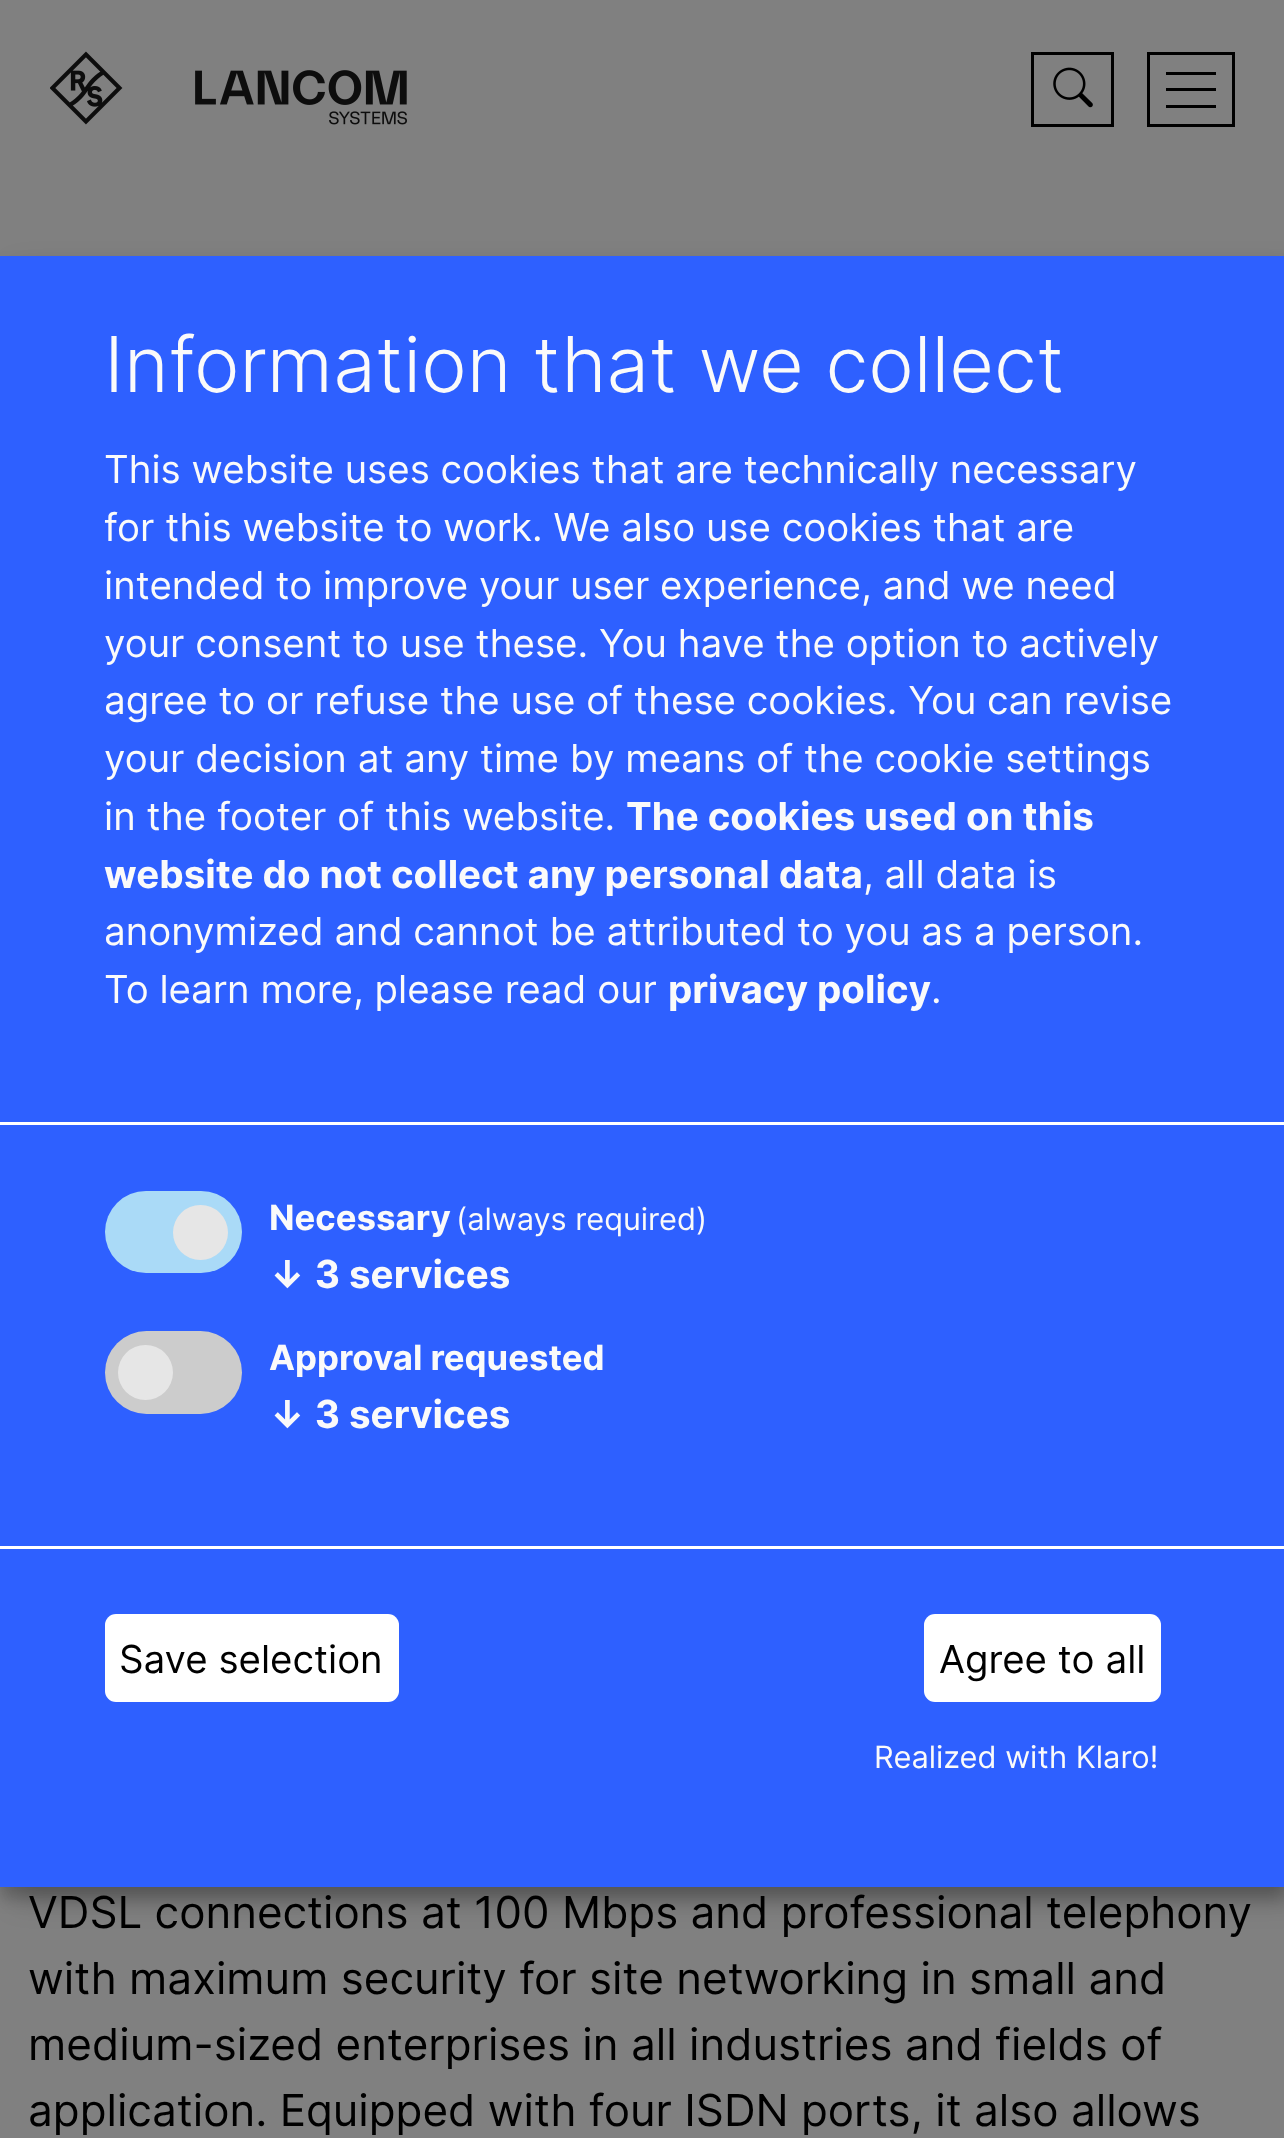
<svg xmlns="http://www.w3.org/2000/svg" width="1284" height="2138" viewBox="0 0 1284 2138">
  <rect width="100%" height="100%" fill="rgb(128,128,128)"/>
  <image x="50" y="51" width="357" height="74" href="pic1.png"/>
  <rect x="1032.5" y="53.5" width="80" height="72" fill="none" stroke="rgb(0,0,0)" stroke-width="3"/>
  <image x="1053" y="67" width="40" height="41" href="pic2.png"/>
  <rect x="1148.5" y="53.5" width="85" height="72" fill="none" stroke="rgb(0,0,0)" stroke-width="3"/>
  <rect x="1166" y="72" width="50" height="3" fill="rgb(0,0,0)"/>
  <rect x="1166" y="88" width="50" height="3" fill="rgb(0,0,0)"/>
  <rect x="1166" y="105" width="50" height="3" fill="rgb(0,0,0)"/>
  <rect x="14" y="270" width="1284" height="1630" fill="rgba(0,0,0,0.19)" filter="blur(14px)"/>
  <rect x="0" y="267" width="1284" height="1631" fill="rgba(0,0,0,0.2)" filter="blur(8px)"/>
  <rect x="0" y="256" width="1284" height="1631" fill="rgb(46,96,255)"/>
  <rect x="0" y="1122" width="1284" height="3" fill="rgb(255,255,255)"/>
  <text x="104" y="392" font-family="Inter" font-size="77" font-weight="300" fill="rgb(250,250,250)">Information that we collect</text>
  <g font-family="Inter" font-size="38.5" fill="rgb(250,250,250)">
    <text>
      <tspan x="104" y="483">This website uses cookies that are technically necessary</tspan>
      <tspan x="104" y="541">for this website to work. We also use cookies that are</tspan>
      <tspan x="104" y="599">intended to improve your user experience, and we need</tspan>
      <tspan x="104" y="657">your consent to use these. You have the option to actively</tspan>
      <tspan x="104" y="714">agree to or refuse the use of these cookies. You can revise</tspan>
      <tspan x="104" y="772">your decision at any time by means of the cookie settings</tspan>
      <tspan x="104" y="830">in the footer of this website.</tspan>
    </text>
  </g>
  <g font-family="Inter" font-size="38.5" font-weight="bold" fill="rgb(250,250,250)">
    <text x="626" y="830">The cookies used on this</text>
    <text x="104" y="888">website do not collect any personal data</text>
  </g>
  <g font-family="Inter" font-size="38.5" fill="rgb(250,250,250)">
    <text x="863" y="888">, all data is</text>
    <text>
      <tspan x="104" y="945">anonymized and cannot be attributed to you as a person.</tspan>
      <tspan x="104" y="1003">To learn more, please read our</tspan>
    </text>
  </g>
  <text x="668" y="1003" font-family="Inter" font-size="38.5" font-weight="bold" fill="rgb(250,250,250)">privacy policy</text>
  <text x="931" y="1003" font-family="Inter" font-size="38.5" fill="rgb(250,250,250)">.</text>
  <rect x="105" y="1191" width="137" height="82" rx="41" fill="rgb(170,218,247)"/>
  <circle cx="200.5" cy="1232.5" r="27.5" fill="rgb(230,230,230)"/>
  <text x="269" y="1230" font-family="Inter" font-size="34.75" font-weight="bold" fill="rgb(250,250,250)">Necessary</text>
  <text x="456" y="1230" font-family="Inter" font-size="30.75" fill="rgb(250,250,250)">(always required)</text>
  <text x="269" y="1288" font-family="Inter" font-size="38.5" font-weight="bold" fill="rgb(250,250,250)">↓ 3 services</text>
  <rect x="105" y="1331" width="137" height="83" rx="41.5" fill="rgb(204,204,204)"/>
  <circle cx="145.5" cy="1372.5" r="27.5" fill="rgb(230,230,230)"/>
  <text x="269" y="1370" font-family="Inter" font-size="34.75" font-weight="bold" fill="rgb(250,250,250)">Approval requested</text>
  <text x="269" y="1428" font-family="Inter" font-size="38.5" font-weight="bold" fill="rgb(250,250,250)">↓ 3 services</text>
  <rect x="0" y="1546" width="1284" height="3" fill="rgb(255,255,255)"/>
  <rect x="105" y="1614" width="294" height="88" rx="11" fill="rgb(255,255,255)"/>
  <text x="119" y="1673" font-family="Inter" font-size="38.5" fill="rgb(0,0,0)">Save selection</text>
  <rect x="924" y="1614" width="237" height="88" rx="11" fill="rgb(255,255,255)"/>
  <text x="939" y="1673" font-family="Inter" font-size="38.5" fill="rgb(0,0,0)">Agree to all</text>
  <text x="874" y="1768" font-family="Inter" font-size="30.75" fill="rgb(250,250,250)">Realized with Klaro!</text>
  <g font-family="Inter" font-size="44" fill="rgb(0,0,0)">
    <text>
      <tspan x="28" y="1928">VDSL connections at 100 Mbps and professional telephony</tspan>
      <tspan x="28" y="1994">with maximum security for site networking in small and</tspan>
      <tspan x="28" y="2060">medium-sized enterprises in all industries and fields of</tspan>
      <tspan x="28" y="2126">application. Equipped with four ISDN ports, it also allows</tspan>
    </text>
  </g>
</svg>
